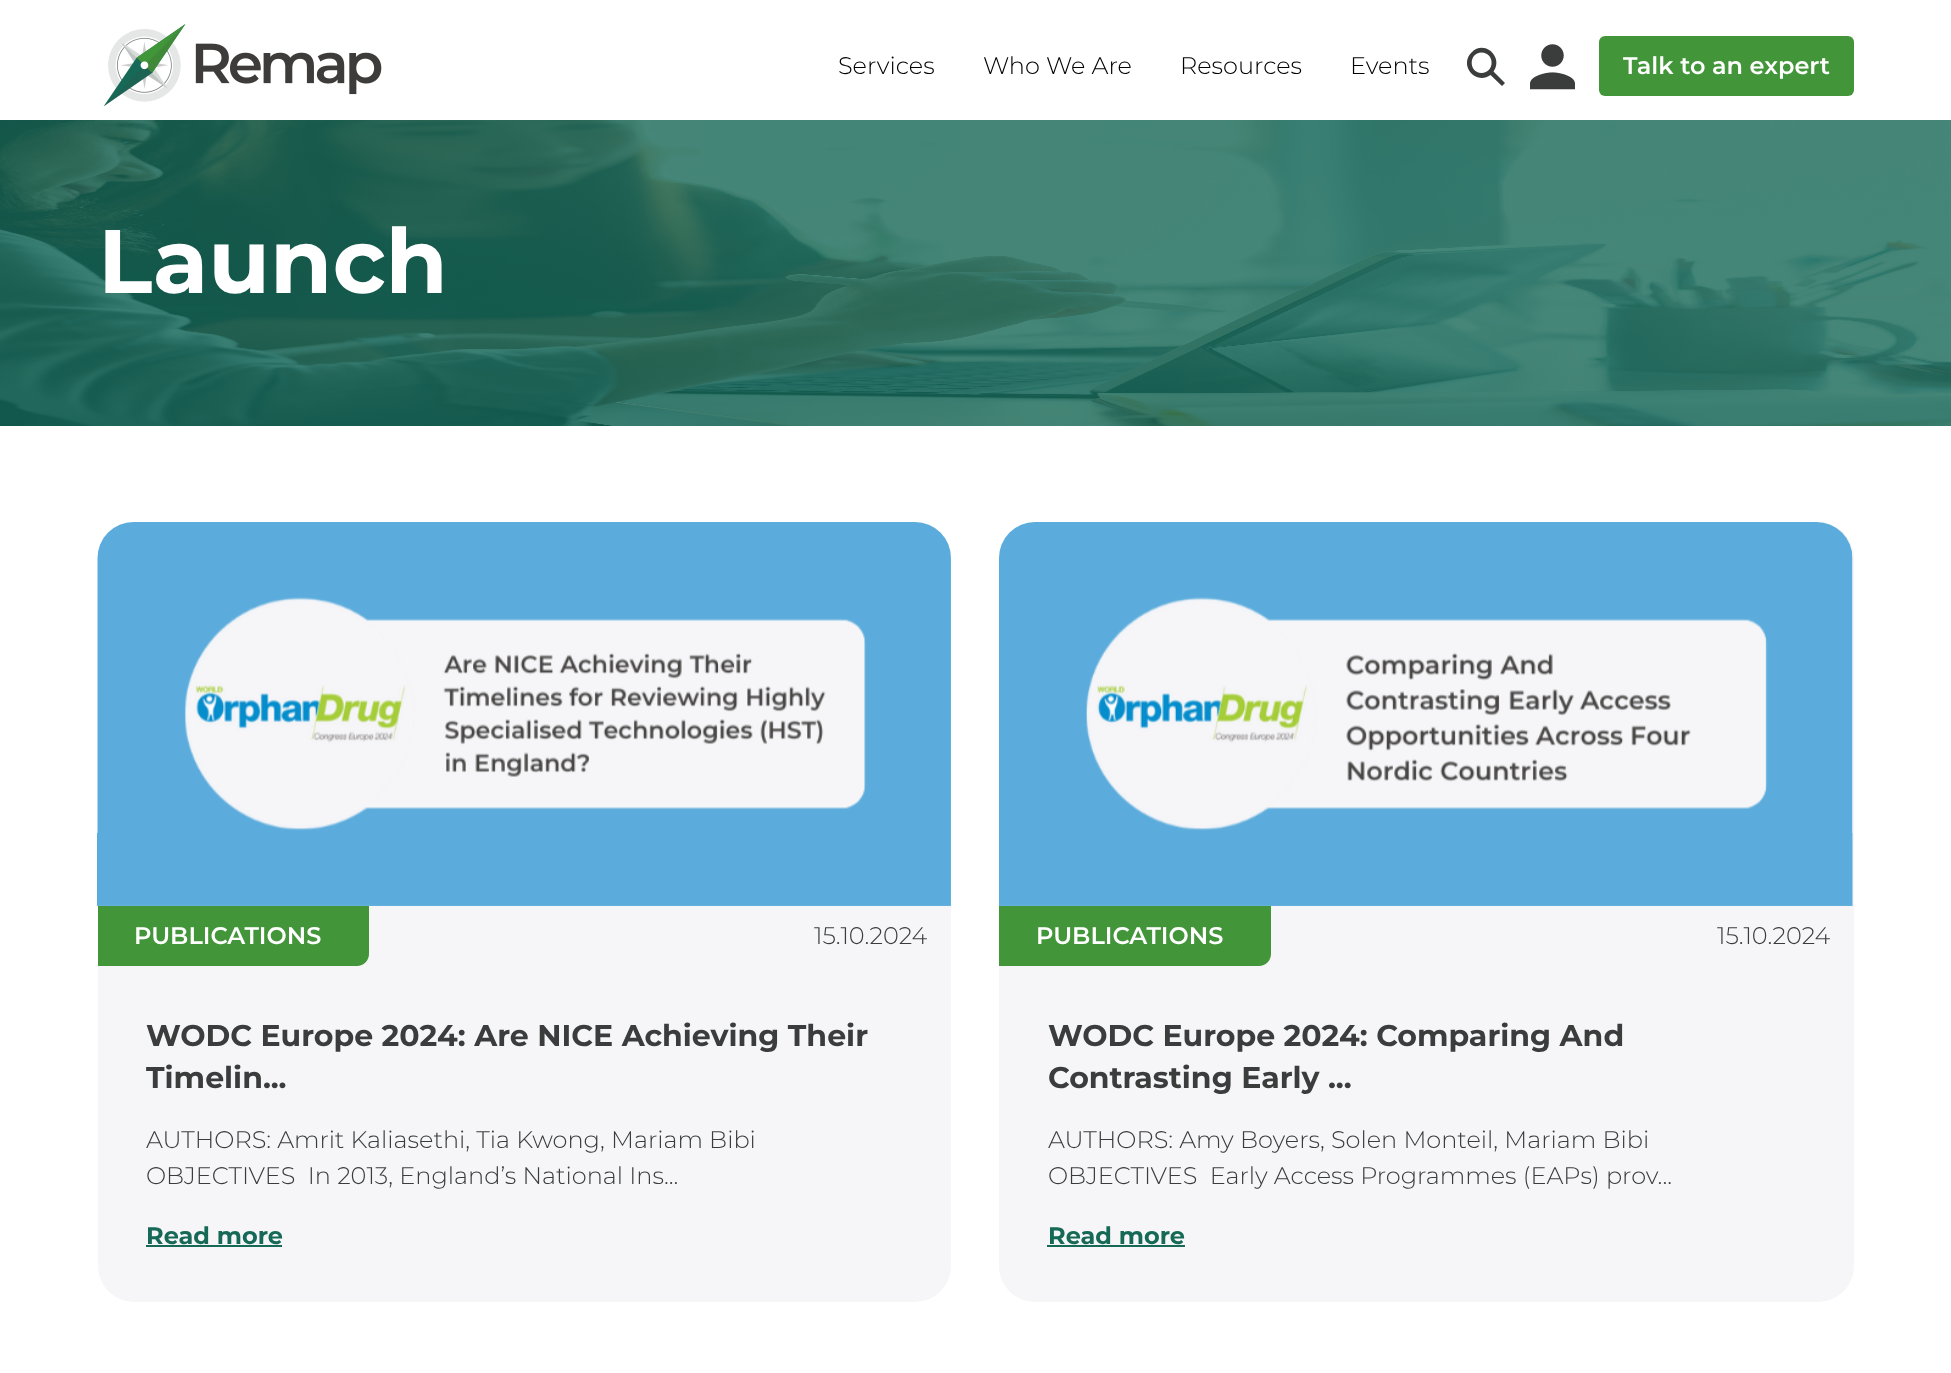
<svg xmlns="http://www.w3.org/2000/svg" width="1951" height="1373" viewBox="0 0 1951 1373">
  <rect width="100%" height="100%" fill="rgb(255,255,255)"/>
  <image x="103" y="24" width="279" height="83" href="pic1.png"/>
  <g font-family="Montserrat" font-size="24" font-weight="300" fill="rgb(0,0,0)">
    <text x="838" y="74">Services</text>
    <text x="983" y="74">Who We Are</text>
    <text x="1180" y="74">Resources</text>
    <text x="1350" y="74">Events</text>
  </g>
  <path d="M1493.5 71.5C1504 57.5 1484.5 39 1471.5 52.5C1458.5 65.5 1476 85.5 1490.5 75L1502 86L1505 83ZM1481.5 73C1468.5 73 1468.5 52.5 1481.5 52.5C1495 52.5 1495 73 1481.5 73Z" fill="rgb(59,61,60)"/>
  <image x="1530" y="44" width="45" height="46" href="pic2.png"/>
  <rect x="1599" y="36" width="255" height="60" rx="6" fill="rgb(67,149,57)"/>
  <text x="1623" y="74" font-family="Montserrat" font-size="24" font-weight="600" fill="rgb(255,255,255)">Talk to an expert</text>
  <image x="0" y="120" width="1951" height="306" href="pic3.png"/>
  <text x="98" y="293" font-family="Montserrat" font-size="90" font-weight="bold" fill="rgb(255,255,255)">Launch</text>
  <rect x="98" y="522" width="853" height="780" rx="36" fill="rgb(246,246,249)"/>
  <image x="97" y="522" width="854" height="384" href="pic4.png"/>
  <path d="M98 906H369V954C369 960.5 363.5 966 357 966H98Z" fill="rgb(67,149,57)"/>
  <text x="134" y="944" font-family="Montserrat" font-size="24" font-weight="600" fill="rgb(255,255,255)">PUBLICATIONS</text>
  <text x="814" y="944" font-family="Montserrat" font-size="24" font-weight="300" fill="rgb(59,61,60)">15.10.2024</text>
  <g font-family="Montserrat" font-size="30" font-weight="bold" fill="rgb(59,61,60)">
    <text>
      <tspan x="146" y="1046">WODC Europe 2024: Are NICE Achieving Their</tspan>
      <tspan x="146" y="1088">Timelin...</tspan>
    </text>
  </g>
  <g font-family="Montserrat" font-size="24" font-weight="300" fill="rgb(59,61,60)">
    <text xml:space="preserve"><tspan x="146" y="1148">AUTHORS: Amrit Kaliasethi, Tia Kwong, Mariam Bibi</tspan><tspan x="146" y="1184">OBJECTIVES  In 2013, England’s National Ins...</tspan></text>
  </g>
  <text x="146" y="1244" font-family="Montserrat" font-size="24" font-weight="bold" fill="rgb(23,105,87)">Read more</text>
  <rect x="146" y="1245" width="136" height="2" fill="rgb(23,105,87)"/>
  <rect x="999" y="522" width="855" height="780" rx="36" fill="rgb(246,246,249)"/>
  <image x="999" y="522" width="854" height="384" href="pic5.png"/>
  <path d="M999 906H1271V954C1271 960.5 1265.5 966 1259 966H999Z" fill="rgb(67,149,57)"/>
  <text x="1036" y="944" font-family="Montserrat" font-size="24" font-weight="600" fill="rgb(255,255,255)">PUBLICATIONS</text>
  <text x="1717" y="944" font-family="Montserrat" font-size="24" font-weight="300" fill="rgb(59,61,60)">15.10.2024</text>
  <g font-family="Montserrat" font-size="30" font-weight="bold" fill="rgb(59,61,60)">
    <text>
      <tspan x="1048" y="1046">WODC Europe 2024: Comparing And</tspan>
      <tspan x="1048" y="1088">Contrasting Early ...</tspan>
    </text>
  </g>
  <g font-family="Montserrat" font-size="24" font-weight="300" fill="rgb(59,61,60)">
    <text xml:space="preserve"><tspan x="1048" y="1148">AUTHORS: Amy Boyers, Solen Monteil, Mariam Bibi</tspan><tspan x="1048" y="1184">OBJECTIVES  Early Access Programmes (EAPs) prov...</tspan></text>
  </g>
  <text x="1048" y="1244" font-family="Montserrat" font-size="24" font-weight="bold" fill="rgb(23,105,87)">Read more</text>
  <rect x="1047" y="1245" width="138" height="2" fill="rgb(23,105,87)"/>
</svg>
